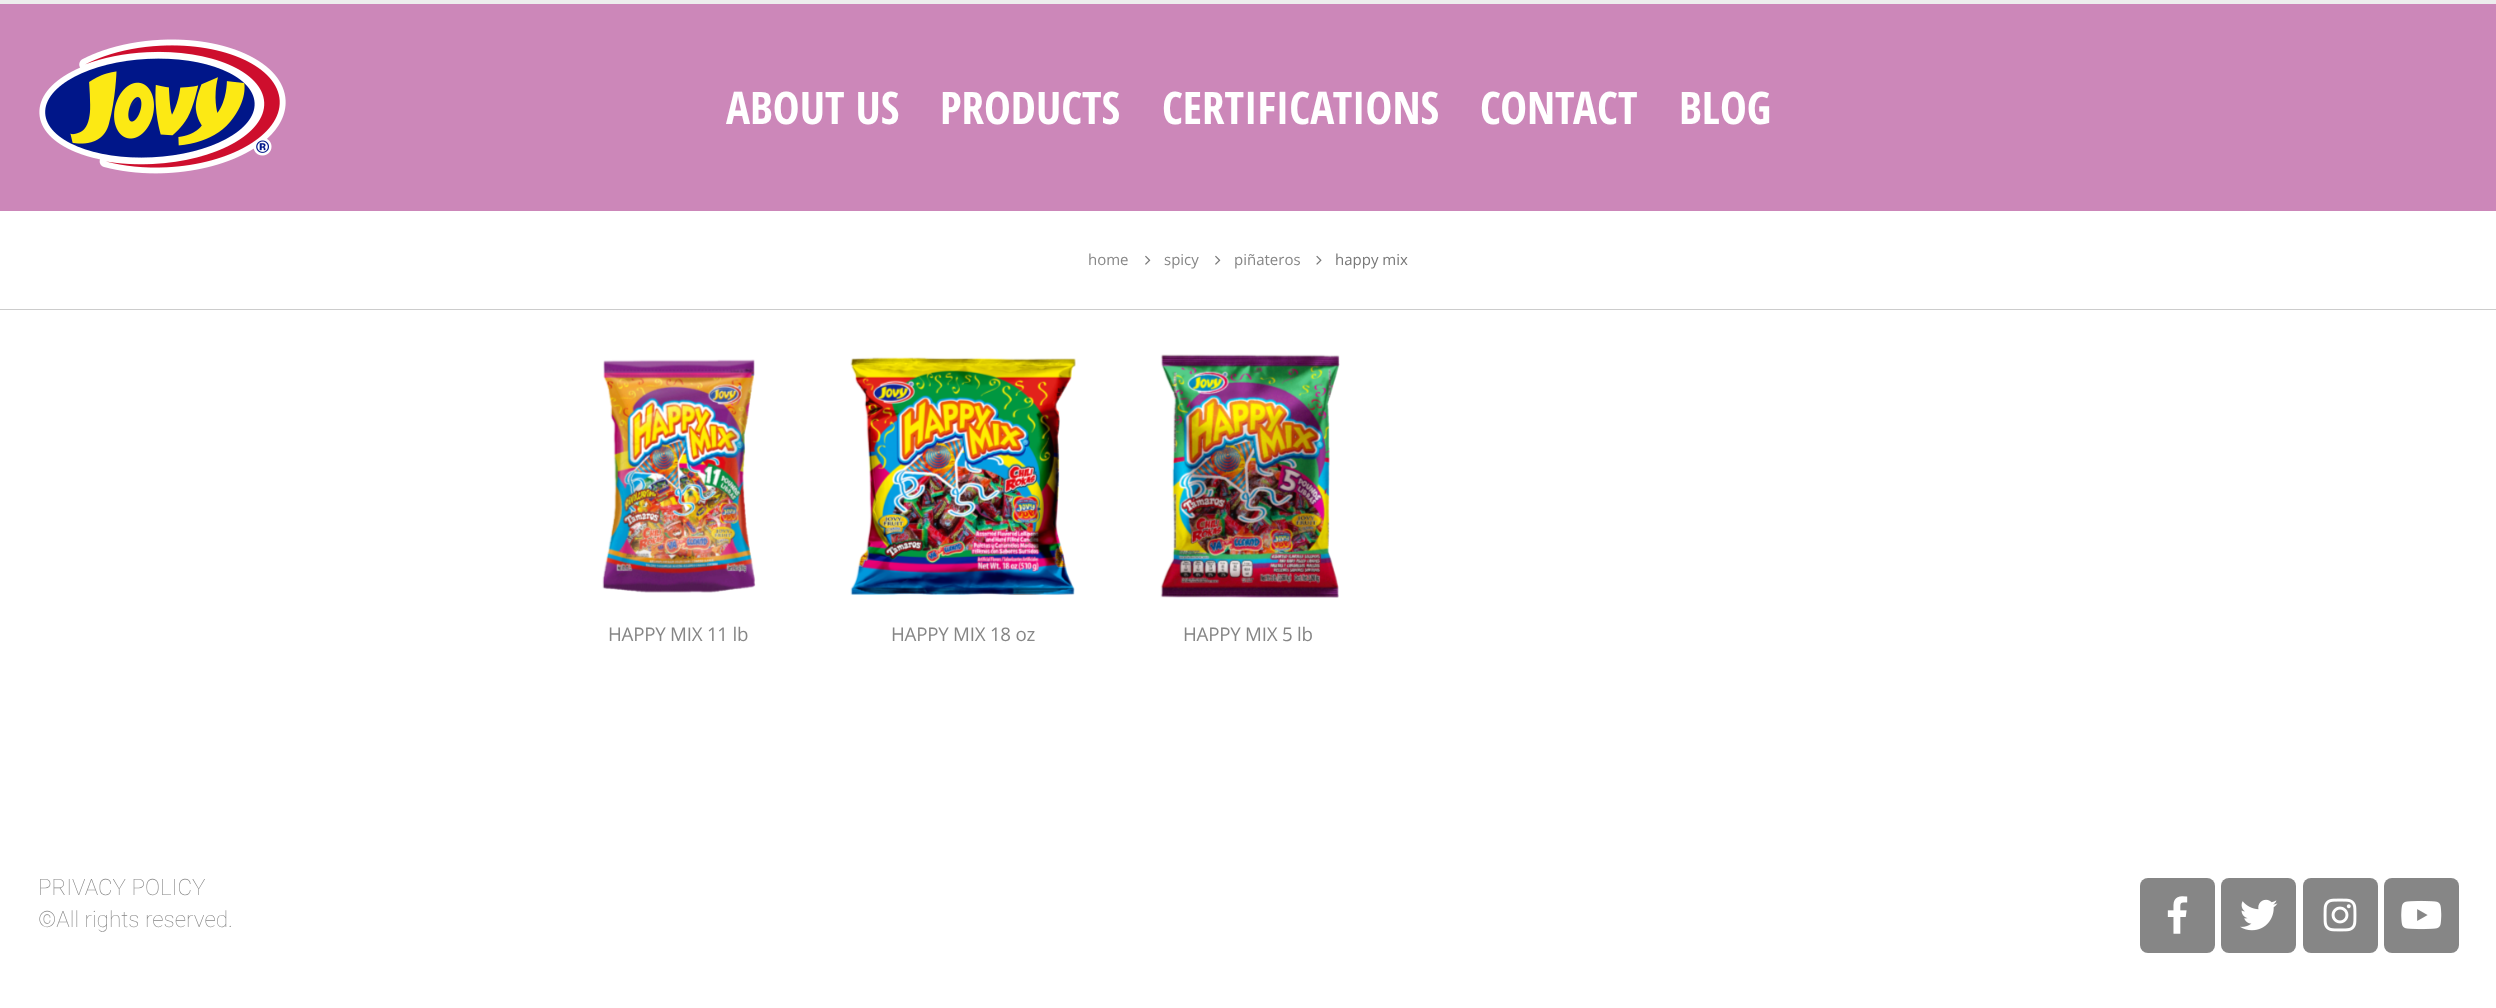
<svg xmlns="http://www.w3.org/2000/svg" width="2496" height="1008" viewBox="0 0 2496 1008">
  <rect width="100%" height="100%" fill="rgb(255,255,255)"/>
  <rect x="0" y="4" width="2496" height="207" fill="rgb(204,135,185)"/>
  <rect x="0" y="0" width="2496" height="4" fill="rgb(237,237,237)"/>
  <image x="39" y="39" width="247" height="135" href="pic1.png"/>
  <g font-family="Open Sans Condensed" font-size="45" font-weight="bold" fill="rgb(255,255,255)">
    <text x="726" y="124">ABOUT US</text>
    <text x="940" y="124">PRODUCTS</text>
    <text x="1162" y="124">CERTIFICATIONS</text>
    <text x="1480" y="124">CONTACT</text>
    <text x="1679" y="124">BLOG</text>
  </g>
  <rect x="0" y="309" width="2496" height="1" fill="rgb(204,204,204)"/>
  <text x="1088" y="265" font-family="Open Sans" font-size="15" fill="rgb(134,134,134)">home</text>
  <image x="1145" y="255" width="6" height="10" href="pic2.png"/>
  <text x="1164" y="265" font-family="Open Sans" font-size="15" fill="rgb(134,134,134)">spicy</text>
  <image x="1215" y="255" width="6" height="10" href="pic2.png"/>
  <text x="1234" y="265" font-family="Open Sans" font-size="15" fill="rgb(134,134,134)">piñateros</text>
  <image x="1316" y="255" width="6" height="10" href="pic3.png"/>
  <text x="1335" y="265" font-family="Open Sans" font-size="15" fill="rgb(119,119,119)">happy mix</text>
  <image x="602" y="359" width="154" height="234" href="pic4.png"/>
  <text x="608" y="641" font-family="Open Sans" font-size="18.75" letter-spacing="-0.25" fill="rgb(134,134,134)">HAPPY MIX 11 lb</text>
  <image x="850" y="357" width="226" height="238" href="pic5.png"/>
  <text x="891" y="641" font-family="Open Sans" font-size="18.75" letter-spacing="-0.25" fill="rgb(134,134,134)">HAPPY MIX 18 oz</text>
  <image x="1160" y="354" width="180" height="244" href="pic6.png"/>
  <text x="1183" y="641" font-family="Open Sans" font-size="18.75" letter-spacing="-0.25" fill="rgb(134,134,134)">HAPPY MIX 5 lb</text>
  <g font-family="Roboto" font-size="22.5" font-weight="100" fill="rgb(134,134,134)">
    <text>
      <tspan x="38" y="895">PRIVACY POLICY</tspan>
      <tspan x="38" y="927">©All rights reserved.</tspan>
    </text>
  </g>
  <rect x="2140" y="878" width="75" height="75" rx="8" fill="rgb(134,134,134)"/>
  <image x="2167" y="896" width="21" height="38" href="pic7.png"/>
  <rect x="2221" y="878" width="75" height="75" rx="8" fill="rgb(134,134,134)"/>
  <image x="2240" y="899" width="38" height="32" href="pic8.png"/>
  <rect x="2303" y="878" width="75" height="75" rx="8" fill="rgb(134,134,134)"/>
  <image x="2323" y="898" width="34" height="34" href="pic9.png"/>
  <rect x="2384" y="878" width="75" height="75" rx="8" fill="rgb(134,134,134)"/>
  <image x="2401" y="900" width="41" height="30" href="pic10.png"/>
</svg>
